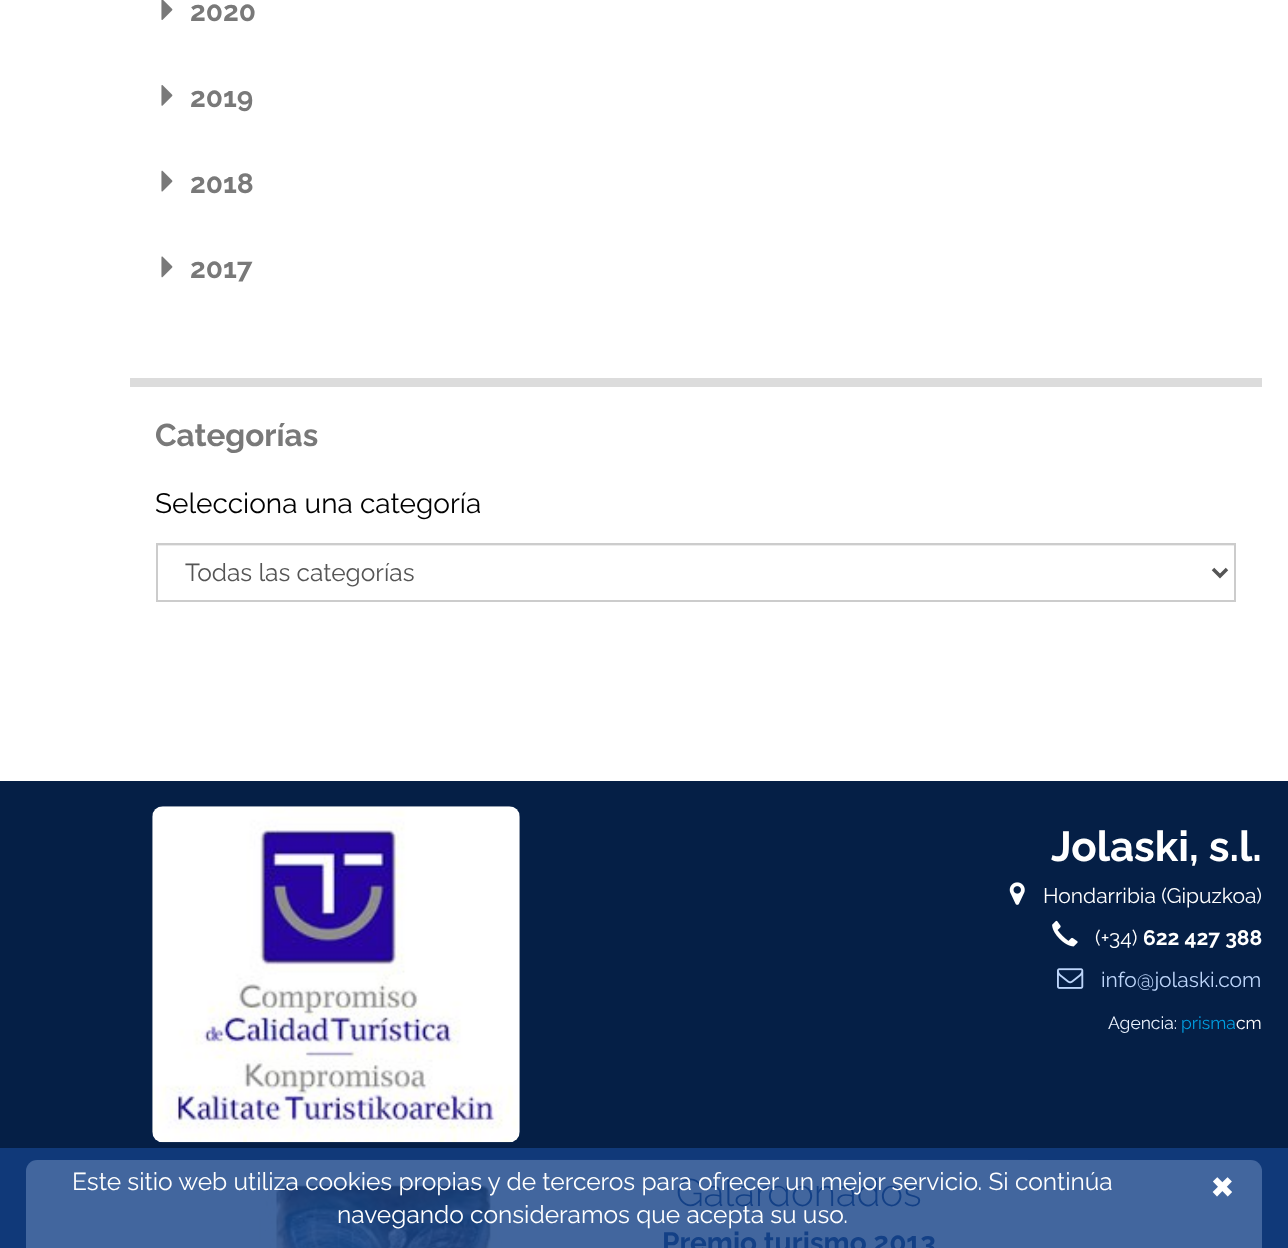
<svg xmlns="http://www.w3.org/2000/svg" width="1288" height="1248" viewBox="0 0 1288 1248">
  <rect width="100%" height="100%" fill="rgb(5,31,70)"/>
  <rect x="0" y="1148" width="1288" height="100" fill="rgb(16,57,121)"/>
  <rect x="0" y="0" width="1288" height="781" fill="rgb(255,255,255)"/>
  <image x="161" y="0" width="12" height="20" href="pic1.png"/>
  <text x="190" y="21" font-family="Raleway" font-size="28" font-weight="bold" fill="rgb(121,121,121)">2020</text>
  <image x="161" y="85" width="12" height="21" href="pic2.png"/>
  <text x="190" y="107" font-family="Raleway" font-size="28" font-weight="bold" fill="rgb(121,121,121)">2019</text>
  <image x="161" y="170" width="12" height="22" href="pic3.png"/>
  <text x="190" y="193" font-family="Raleway" font-size="28" font-weight="bold" fill="rgb(121,121,121)">2018</text>
  <image x="161" y="256" width="12" height="22" href="pic4.png"/>
  <text x="190" y="278" font-family="Raleway" font-size="28" font-weight="bold" fill="rgb(121,121,121)">2017</text>
  <rect x="130" y="378" width="1132" height="9" fill="rgb(220,220,220)"/>
  <text x="155" y="446" font-family="Raleway" font-size="31.5" font-weight="bold" fill="rgb(121,121,121)">Categorías</text>
  <text x="155" y="513" font-family="Raleway" font-size="28" fill="rgb(1,1,1)">Selecciona una categoría</text>
  <rect x="158" y="545" width="1076" height="1" fill="rgb(236,236,236)"/>
  <rect x="157" y="544" width="1078" height="57" fill="none" stroke="rgb(204,204,204)" stroke-width="2"/>
  <path d="M1213 569L1220 576L1227 569" fill="none" stroke="rgb(85,85,85)" stroke-width="3.5"/>
  <text x="185" y="581" font-family="Raleway" font-size="24.5" fill="rgb(85,85,85)">Todas las categorías</text>
  <image x="152" y="806" width="368" height="337" href="pic5.png"/>
  <text x="1051" y="861" font-family="Raleway" font-size="42" font-weight="bold" fill="rgb(255,255,255)">Jolaski, s.l.</text>
  <image x="1009" y="882" width="16" height="23" href="pic6.png"/>
  <text x="1043" y="903" font-family="Raleway" font-size="21" fill="rgb(255,255,255)">Hondarribia (Gipuzkoa)</text>
  <image x="1052" y="920" width="26" height="27" href="pic7.png"/>
  <text x="1095" y="945" font-family="Raleway" font-size="21" fill="rgb(255,255,255)">(+34)</text>
  <text x="1143" y="945" font-family="Raleway" font-size="21" font-weight="bold" fill="rgb(255,255,255)">622 427 388</text>
  <image x="1057" y="968" width="27" height="21" href="pic8.png"/>
  <text x="1101" y="987" font-family="Raleway" font-size="21" fill="rgb(189,213,250)">info@jolaski.com</text>
  <text x="1108" y="1029" font-family="Raleway" font-size="17.5" fill="rgb(234,241,253)">Agencia:</text>
  <text x="1181" y="1029" font-family="Raleway" font-size="17.5" fill="rgb(0,158,224)">prisma</text>
  <text x="1236" y="1029" font-family="Raleway" font-size="17.5" fill="rgb(255,255,255)">cm</text>
  <rect x="26" y="1160" width="1236" height="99" rx="11" fill="rgb(66,102,158)"/>
  <image x="259" y="1159" width="769" height="89" href="pic9.png"/>
  <text x="676" y="1206" font-family="Raleway" font-size="38.5" font-weight="300" fill="rgb(19,64,134)">Galardonados</text>
  <text x="662" y="1252" font-family="Raleway" font-size="28" font-weight="bold" fill="rgb(19,64,134)">Premio turismo 2013</text>
  <g font-family="Raleway" font-size="24.5" fill="rgb(255,255,255)">
    <text x="72" y="1190">Este sitio web utiliza cookies propias y de terceros para ofrecer un mejor servicio. Si continúa</text>
    <text x="337" y="1223">navegando consideramos que acepta su uso.</text>
  </g>
  <text x="1210" y="1201" font-family="Raleway" font-size="52" font-weight="bold" fill="rgb(255,255,255)">×</text>
</svg>
